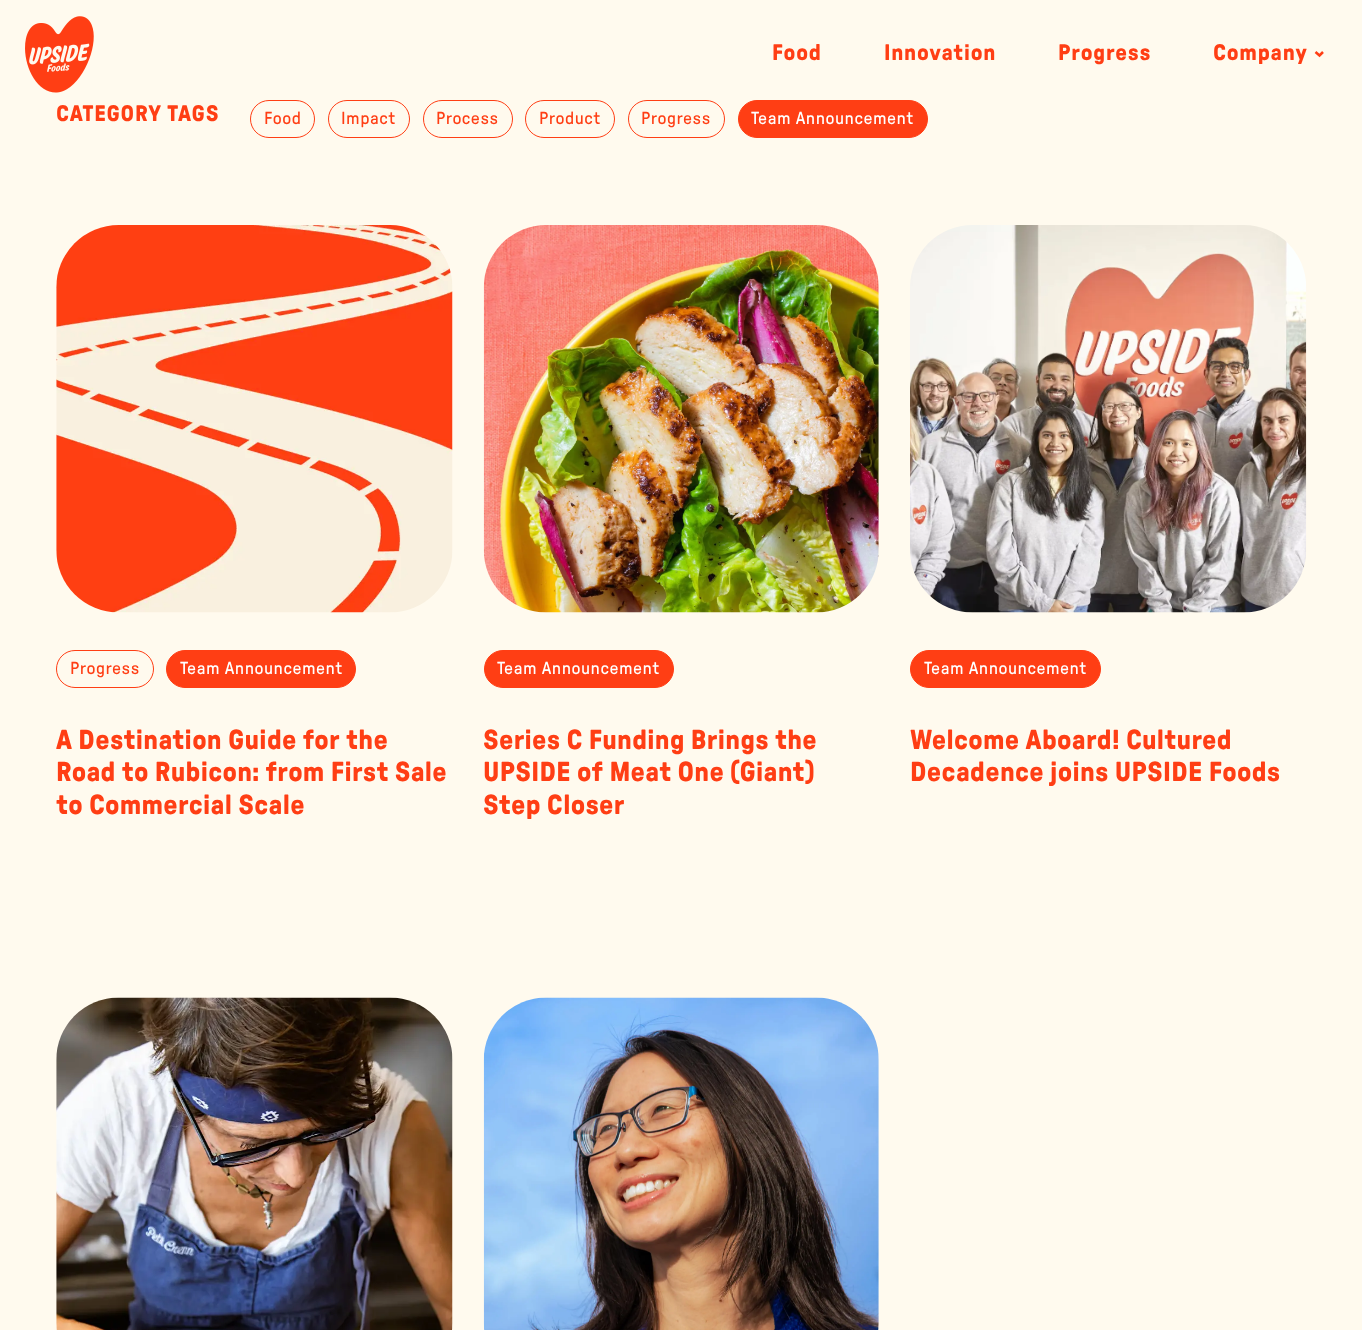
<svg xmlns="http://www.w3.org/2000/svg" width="1362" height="1330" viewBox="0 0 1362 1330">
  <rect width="100%" height="100%" fill="rgb(255,250,238)"/>
  <image x="25" y="16" width="69" height="77" href="pic1.png"/>
  <g font-family="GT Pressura" font-size="22.5" font-weight="bold" letter-spacing="0.75" fill="rgb(255,62,20)">
    <text x="772" y="60">Food</text>
    <text x="884" y="60">Innovation</text>
    <text x="1058" y="60">Progress</text>
    <text x="1213" y="60">Company</text>
  </g>
  <path d="M1323 52L1319.5 55.5L1315.5 52" fill="none" stroke="rgb(255,62,20)" stroke-width="2.5"/>
  <text x="56" y="121" font-family="GT Pressura" font-size="22.5" font-weight="bold" letter-spacing="0.75" fill="rgb(255,62,20)">CATEGORY TAGS</text>
  <rect x="250.5" y="100.5" width="64" height="37" rx="18.5" fill="none" stroke="rgb(255,62,20)"/>
  <text x="264" y="124" font-family="GT Pressura" font-size="17.5" letter-spacing="0.5" fill="rgb(255,62,20)">Food</text>
  <rect x="328.5" y="100.5" width="81" height="37" rx="18.5" fill="none" stroke="rgb(255,62,20)"/>
  <text x="341" y="124" font-family="GT Pressura" font-size="17.5" letter-spacing="0.5" fill="rgb(255,62,20)">Impact</text>
  <rect x="423.5" y="100.5" width="89" height="37" rx="18.5" fill="none" stroke="rgb(255,62,20)"/>
  <text x="436" y="124" font-family="GT Pressura" font-size="17.5" letter-spacing="0.5" fill="rgb(255,62,20)">Process</text>
  <rect x="525.5" y="100.5" width="89" height="37" rx="18.5" fill="none" stroke="rgb(255,62,20)"/>
  <text x="539" y="124" font-family="GT Pressura" font-size="17.5" letter-spacing="0.5" fill="rgb(255,62,20)">Product</text>
  <rect x="628.5" y="100.5" width="96" height="37" rx="18.5" fill="none" stroke="rgb(255,62,20)"/>
  <text x="641" y="124" font-family="GT Pressura" font-size="17.5" letter-spacing="0.5" fill="rgb(255,62,20)">Progress</text>
  <rect x="738.5" y="100.5" width="189" height="37" rx="18.5" fill="rgb(255,62,20)" stroke="rgb(255,62,20)"/>
  <text x="751" y="124" font-family="GT Pressura" font-size="17.5" letter-spacing="0.5" fill="rgb(255,255,255)">Team Announcement</text>
  <image x="56" y="225" width="397" height="388" href="pic2.png"/>
  <rect x="56.5" y="650.5" width="97" height="37" rx="18.5" fill="none" stroke="rgb(255,62,20)"/>
  <text x="70" y="674" font-family="GT Pressura" font-size="17.5" letter-spacing="0.5" fill="rgb(255,62,20)">Progress</text>
  <rect x="166.5" y="650.5" width="189" height="37" rx="18.5" fill="rgb(255,62,20)" stroke="rgb(255,62,20)"/>
  <text x="180" y="674" font-family="GT Pressura" font-size="17.5" letter-spacing="0.5" fill="rgb(255,255,255)">Team Announcement</text>
  <g font-family="GT Pressura" font-size="27.5" font-weight="bold" letter-spacing="0.25" fill="rgb(255,62,20)">
    <text>
      <tspan x="56" y="749">A Destination Guide for the</tspan>
      <tspan x="56" y="781">Road to Rubicon: from First Sale</tspan>
      <tspan x="56" y="814">to Commercial Scale</tspan>
    </text>
  </g>
  <image x="483" y="225" width="396" height="388" href="pic3.png"/>
  <rect x="484.5" y="650.5" width="189" height="37" rx="18.5" fill="rgb(255,62,20)" stroke="rgb(255,62,20)"/>
  <text x="497" y="674" font-family="GT Pressura" font-size="17.5" letter-spacing="0.5" fill="rgb(255,255,255)">Team Announcement</text>
  <g font-family="GT Pressura" font-size="27.5" font-weight="bold" letter-spacing="0.25" fill="rgb(255,62,20)">
    <text>
      <tspan x="483" y="749">Series C Funding Brings the</tspan>
      <tspan x="483" y="781">UPSIDE of Meat One (Giant)</tspan>
      <tspan x="483" y="814">Step Closer</tspan>
    </text>
  </g>
  <image x="910" y="225" width="397" height="388" href="pic4.png"/>
  <rect x="910.5" y="650.5" width="190" height="37" rx="18.5" fill="rgb(255,62,20)" stroke="rgb(255,62,20)"/>
  <text x="924" y="674" font-family="GT Pressura" font-size="17.5" letter-spacing="0.5" fill="rgb(255,255,255)">Team Announcement</text>
  <g font-family="GT Pressura" font-size="27.5" font-weight="bold" letter-spacing="0.25" fill="rgb(255,62,20)">
    <text>
      <tspan x="910" y="749">Welcome Aboard! Cultured</tspan>
      <tspan x="910" y="781">Decadence joins UPSIDE Foods</tspan>
    </text>
  </g>
  <image x="56" y="997" width="397" height="333" href="pic5.png"/>
  <image x="483" y="997" width="396" height="333" href="pic6.png"/>
</svg>
